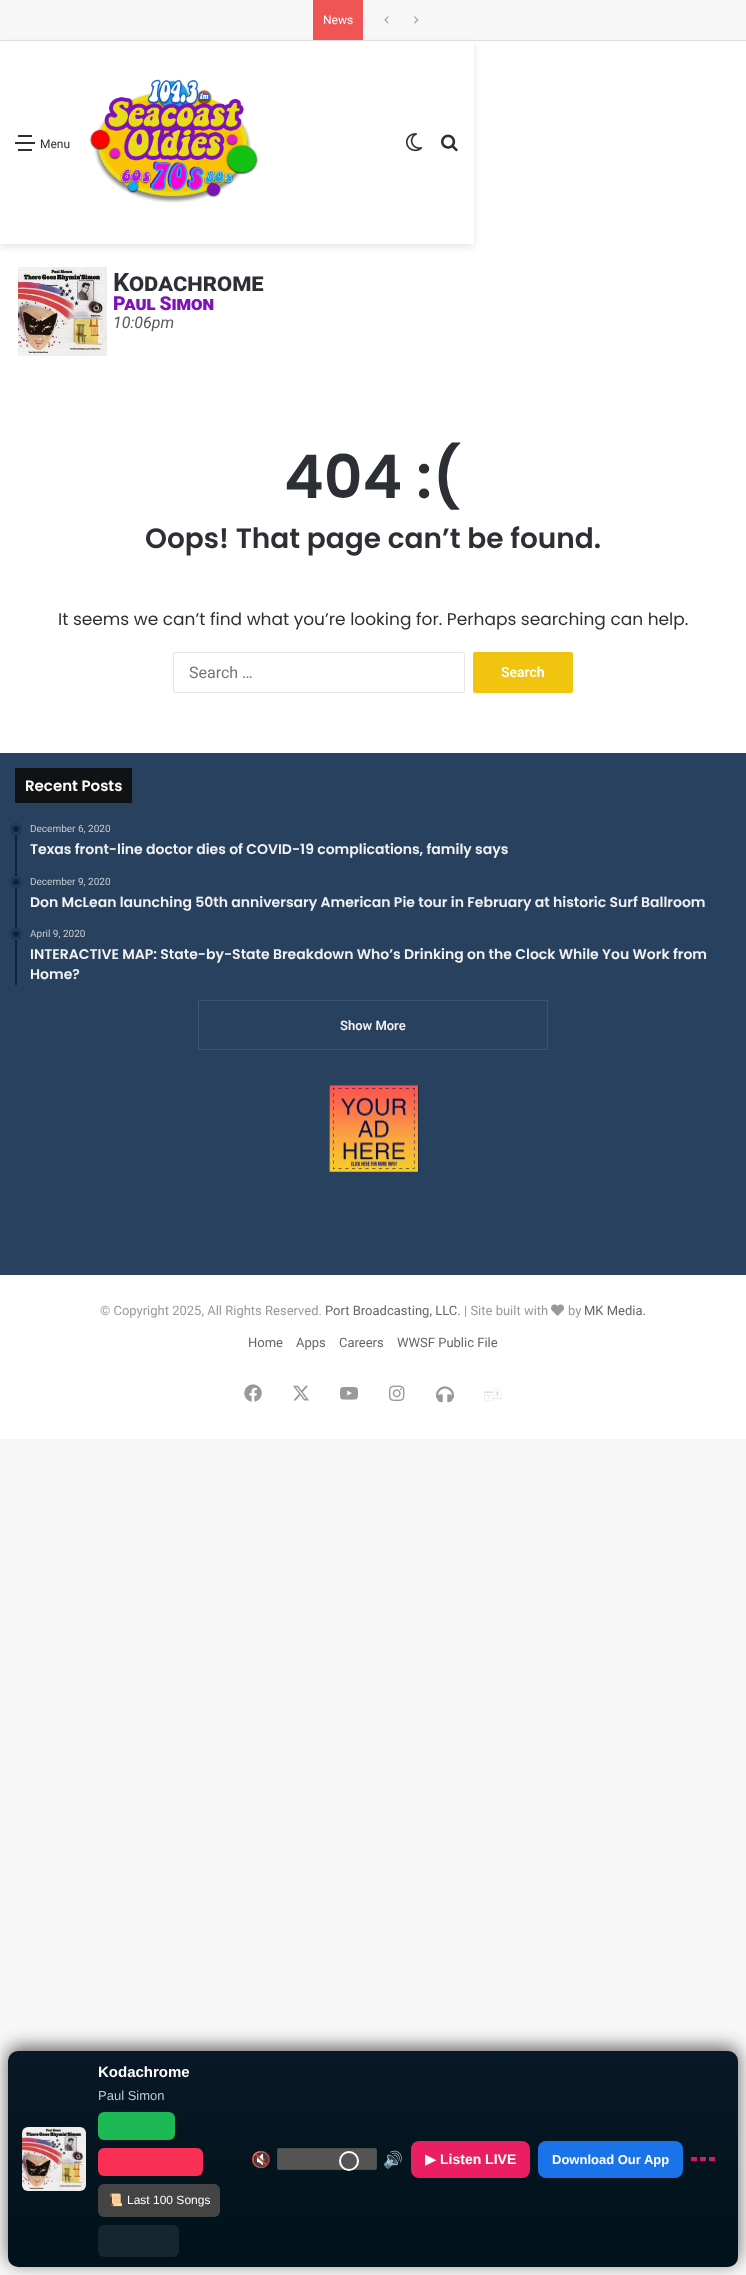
<svg xmlns="http://www.w3.org/2000/svg" width="746" height="2275" viewBox="0 0 746 2275">
  <defs>
    <clipPath id="clip1"><path d="M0 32H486V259H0ZM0 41H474V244H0Z" clip-rule="evenodd"/></clipPath>
    <linearGradient id="g1" gradientUnits="userSpaceOnUse" x1="373" y1="2051" x2="373" y2="2267"><stop offset="0" stop-color="rgb(8,24,38)"/><stop offset="1" stop-color="rgb(0,18,26)"/></linearGradient>
  </defs>
  <rect width="100%" height="100%" fill="rgb(247,247,247)"/>
  <rect x="0" y="41" width="746" height="712" fill="rgb(255,255,255)"/>
  <g clip-path="url(#clip1)">
    <rect x="0" y="44" width="474" height="203" fill="rgba(0,0,0,0.1)" filter="blur(3.5px)"/>
  </g>
  <rect x="0" y="40" width="746" height="1" fill="rgb(221,221,221)"/>
  <rect x="313" y="0" width="50" height="40" fill="rgb(240,85,85)"/>
  <text x="323" y="24" font-family="Roboto" font-size="12" fill="rgb(255,255,255)">News</text>
  <image x="384" y="16" width="5" height="8" href="pic1.png"/>
  <image x="414" y="16" width="5" height="8" href="pic2.png"/>
  <rect x="15" y="142" width="20" height="2" fill="rgb(44,47,52)"/>
  <rect x="18" y="135" width="14" height="2" fill="rgb(44,47,52)"/>
  <rect x="18" y="149" width="14" height="2" fill="rgb(44,47,52)"/>
  <text x="40" y="148" font-family="Roboto" font-size="12" fill="rgb(44,47,52)">Menu</text>
  <image x="89" y="79" width="169" height="124" href="pic3.png"/>
  <image x="406" y="133" width="17" height="19" href="pic4.png"/>
  <image x="441" y="134" width="17" height="18" href="pic5.png"/>
  <image x="18" y="267" width="89" height="89" href="pic6.png"/>
  <text x="113" y="291" font-family="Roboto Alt" font-size="25.5" font-weight="bold" fill="rgb(44,47,52)">Kodachrome</text>
  <text x="113" y="310" word-spacing="-1" font-family="Roboto Alt" font-size="19.25" font-weight="900" fill="rgb(126,17,183)">Paul Simon</text>
  <text x="113" y="328" font-family="Roboto" font-size="16" font-style="italic" fill="rgb(88,88,88)">10:06pm</text>
  <text x="284" y="498" font-family="Poppins" font-size="60" font-weight="600" fill="rgb(44,47,52)">404 :(</text>
  <text x="145" y="548" font-family="Poppins" font-size="28" font-weight="600" fill="rgb(44,47,52)">Oops! That page can’t be found.</text>
  <text x="58" y="625" font-family="Poppins" font-size="17" fill="rgb(44,47,52)">It seems we can’t find what you’re looking for. Perhaps searching can help.</text>
  <rect x="173.5" y="652.5" width="291" height="40" rx="1.5" fill="none" stroke="rgb(230,230,230)"/>
  <text x="189" y="678" font-family="Roboto" font-size="16" fill="rgb(117,117,117)">Search …</text>
  <rect x="473" y="652" width="100" height="41" rx="2" fill="rgb(241,196,15)"/>
  <text x="501" y="677" font-family="Roboto" font-size="14" font-weight="600" fill="rgb(255,255,255)">Search</text>
  <rect x="0" y="753" width="746" height="522" fill="rgb(39,65,94)"/>
  <rect x="15" y="768" width="117" height="35" fill="rgb(17,18,19)"/>
  <text x="25" y="791" font-family="Poppins" font-size="15" font-weight="600" fill="rgb(255,255,255)">Recent Posts</text>
  <rect x="15" y="823" width="2" height="162" fill="rgb(9,35,64)"/>
  <circle cx="16" cy="829" r="6" fill="rgb(9,35,64)"/>
  <circle cx="16" cy="829" r="4.5" fill="none" stroke="rgba(39,65,94,0.8)" stroke-width="3"/>
  <text x="30" y="832" font-family="Roboto" font-size="10" fill="rgb(202,203,203)">December 6, 2020</text>
  <text x="30" y="854" font-family="Poppins" font-size="14" font-weight="600" fill="rgb(242,242,243)">Texas front-line doctor dies of COVID-19 complications, family says</text>
  <circle cx="16" cy="882" r="6" fill="rgb(9,35,64)"/>
  <circle cx="16" cy="882" r="4.5" fill="none" stroke="rgba(39,65,94,0.8)" stroke-width="3"/>
  <text x="30" y="885" font-family="Roboto" font-size="10" fill="rgb(202,203,203)">December 9, 2020</text>
  <text x="30" y="907" font-family="Poppins" font-size="14" font-weight="600" fill="rgb(242,242,243)">Don McLean launching 50th anniversary American Pie tour in February at historic Surf Ballroom</text>
  <circle cx="16" cy="934" r="6" fill="rgb(9,35,64)"/>
  <circle cx="16" cy="934" r="4.5" fill="none" stroke="rgba(39,65,94,0.8)" stroke-width="3"/>
  <text x="30" y="937" font-family="Roboto" font-size="10" fill="rgb(202,203,203)">April 9, 2020</text>
  <g font-family="Poppins" font-size="14" font-weight="600" fill="rgb(242,242,243)">
    <text>
      <tspan x="30" y="959">INTERACTIVE MAP: State-by-State Breakdown Who’s Drinking on the Clock While You Work from</tspan>
      <tspan x="30" y="979">Home?</tspan>
    </text>
  </g>
  <rect x="198.5" y="1000.5" width="349" height="49" fill="none" stroke="rgb(60,84,110)"/>
  <text x="340" y="1030" font-family="Roboto" font-size="13" font-weight="600" fill="rgb(242,242,243)">Show More</text>
  <image x="329" y="1085" width="90" height="87" href="pic7.png"/>
  <rect x="0" y="1275" width="746" height="164" fill="rgb(255,255,255)"/>
  <text x="100" y="1315" font-family="Roboto" font-size="13" fill="rgb(153,153,153)">© Copyright 2025, All Rights Reserved.</text>
  <text x="325" y="1315" font-family="Roboto" font-size="13" fill="rgb(102,102,102)">Port Broadcasting, LLC.</text>
  <text x="464" y="1315" font-family="Roboto" font-size="13" fill="rgb(153,153,153)">| Site built with</text>
  <image x="551" y="1304" width="13" height="12" href="pic8.png"/>
  <text x="568" y="1315" font-family="Roboto" font-size="13" fill="rgb(153,153,153)">by</text>
  <g font-family="Roboto" font-size="13" fill="rgb(102,102,102)">
    <text x="584" y="1315">MK Media.</text>
    <text x="248" y="1347">Home</text>
    <text x="296" y="1347">Apps</text>
    <text x="339" y="1347">Careers</text>
    <text x="397" y="1347">WWSF Public File</text>
  </g>
  <image x="244" y="1384" width="18" height="18" href="pic9.png"/>
  <image x="293" y="1385" width="16" height="16" href="pic10.png"/>
  <image x="340" y="1386" width="18" height="14" href="pic11.png"/>
  <image x="389" y="1385" width="16" height="16" href="pic12.png"/>
  <image x="436" y="1386" width="18" height="17" href="pic13.png"/>
  <image x="484" y="1388" width="18" height="14" href="pic14.png"/>
  <rect x="8" y="2047" width="730" height="216" rx="10" fill="rgba(0,0,0,0.6)" filter="blur(9px)"/>
  <rect x="8" y="2051" width="730" height="216" rx="10" fill="url(#g1)"/>
  <image x="22" y="2127" width="64" height="64" href="pic15.png"/>
  <text x="98" y="2077" font-family="Liberation Sans" font-size="15" font-weight="bold" fill="rgb(255,255,255)">Kodachrome</text>
  <text x="98" y="2100" font-family="Liberation Sans" font-size="13" fill="rgb(191,201,204)">Paul Simon</text>
  <rect x="98" y="2112" width="77" height="28" rx="6" fill="rgb(29,185,84)"/>
  <rect x="98" y="2148" width="105" height="28" rx="6" fill="rgb(250,47,85)"/>
  <rect x="98" y="2184" width="122" height="33" rx="6" fill="rgb(68,68,68)"/>
  <text x="108" y="2204" font-family="Noto Color Emoji" font-size="12" fill="rgb(255,255,255)">📜</text>
  <text x="127" y="2204" font-family="Liberation Sans" font-size="12" fill="rgb(255,255,255)">Last 100 Songs</text>
  <rect x="98" y="2225" width="81" height="32" rx="6" fill="rgb(21,38,46)"/>
  <text x="251" y="2165" font-family="Noto Color Emoji" font-size="16" fill="rgb(255,255,255)">🔇</text>
  <rect x="277" y="2148" width="100" height="22" rx="2" fill="rgb(85,85,85)"/>
  <rect x="277.5" y="2148.5" width="99" height="21" rx="1.5" fill="none" stroke="rgba(0,0,0,0.1)"/>
  <circle cx="349" cy="2161" r="9" fill="none" stroke="rgb(255,255,255)" stroke-width="2"/>
  <text x="383" y="2165" font-family="Noto Color Emoji" font-size="16" fill="rgb(255,255,255)">🔊</text>
  <rect x="411" y="2141" width="119" height="37" rx="8" fill="rgb(233,30,99)"/>
  <text x="425" y="2164" font-family="DejaVu Sans" font-size="14" font-weight="bold" fill="rgb(255,255,255)">▶</text>
  <text x="440" y="2164" font-family="Liberation Sans" font-size="14" font-weight="bold" fill="rgb(255,255,255)">Listen LIVE</text>
  <rect x="538" y="2141" width="145" height="37" rx="8" fill="rgb(26,115,232)"/>
  <text x="552" y="2164" font-family="Liberation Sans" font-size="13" font-weight="bold" fill="rgb(255,255,255)">Download Our App</text>
  <rect x="691" y="2157" width="6" height="4" fill="rgb(210,29,92)"/>
  <rect x="700" y="2157" width="6" height="4" fill="rgb(210,29,92)"/>
  <rect x="709" y="2157" width="6" height="4" fill="rgb(210,29,92)"/>
</svg>
